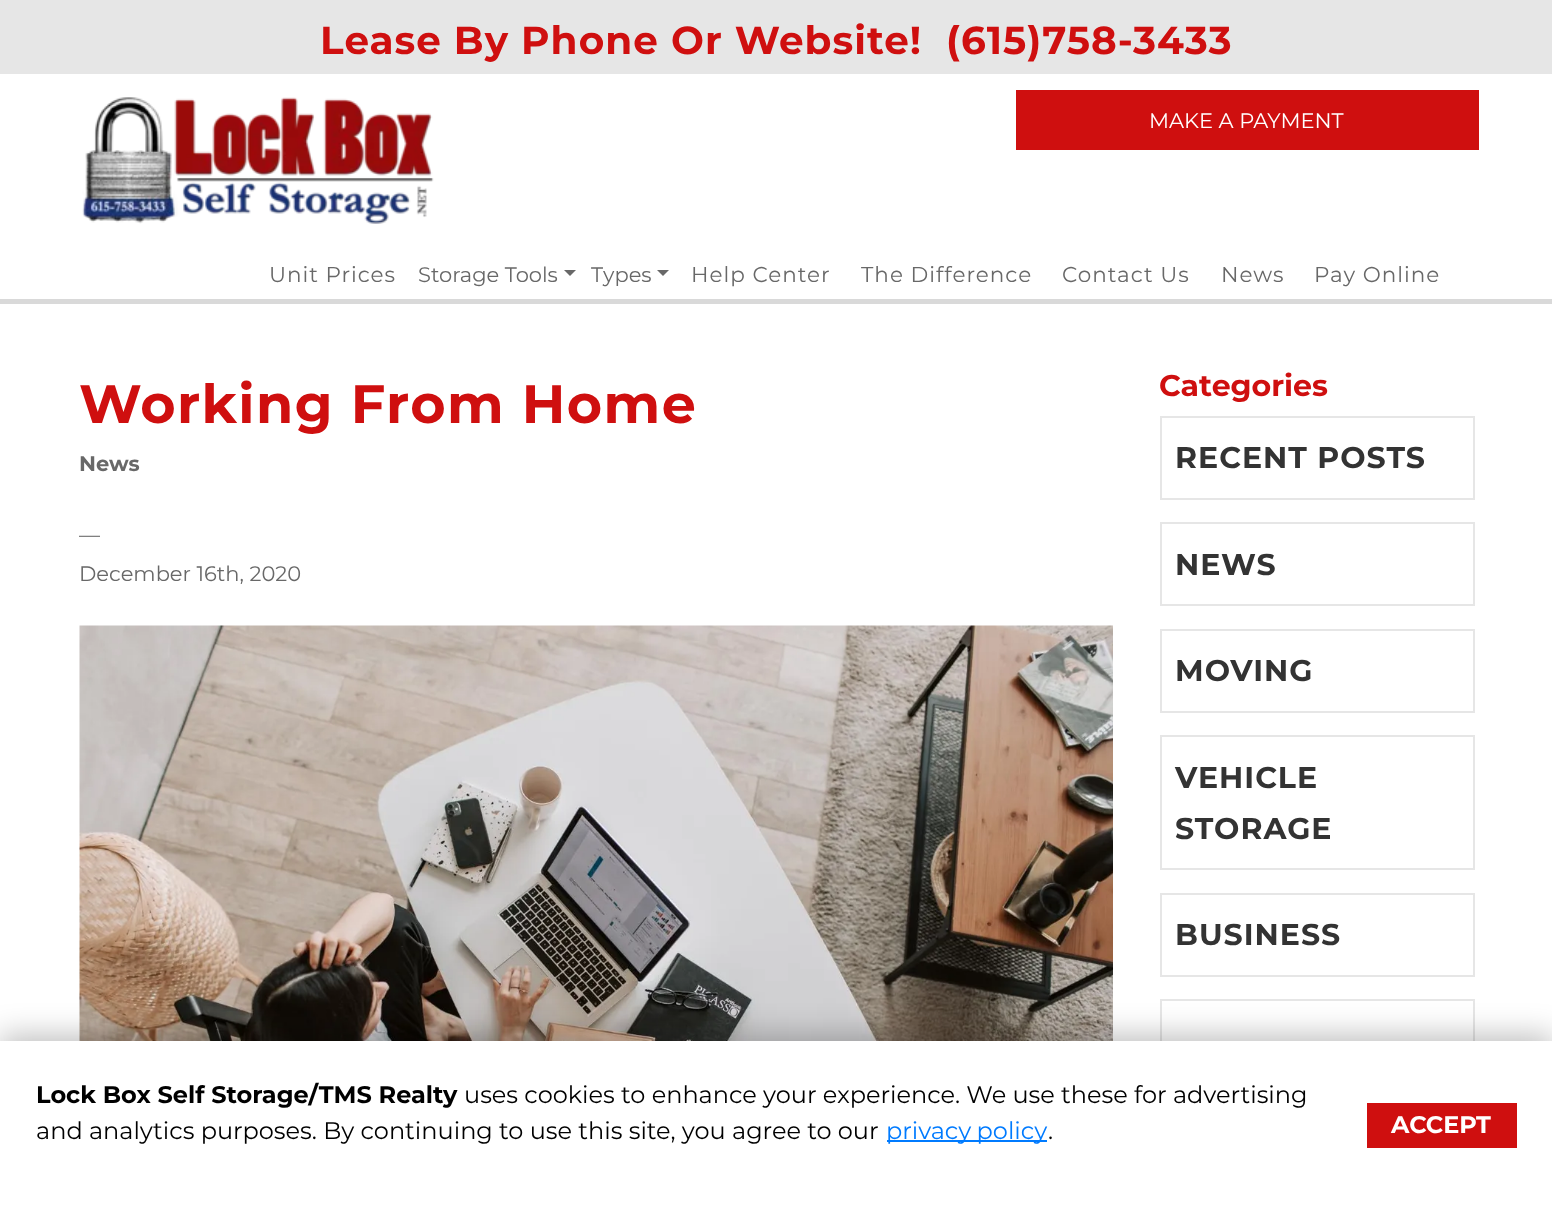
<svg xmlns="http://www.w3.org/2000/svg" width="1552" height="1209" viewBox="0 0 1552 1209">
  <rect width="100%" height="100%" fill="rgb(255,255,255)"/>
  <rect x="0" y="0" width="1552" height="74" fill="rgb(230,230,230)"/>
  <g font-family="Montserrat" font-size="39" font-weight="bold" letter-spacing="1" fill="rgb(207,15,15)">
    <text x="320" y="54">Lease By Phone Or Website!</text>
    <text x="946" y="54">(615)758-3433</text>
  </g>
  <image x="82" y="97" width="352" height="127" href="pic1.png"/>
  <rect x="1016" y="90" width="463" height="60" fill="rgb(207,15,15)"/>
  <text x="1149" y="128" font-family="Montserrat" font-size="21" fill="rgb(255,255,255)">MAKE A PAYMENT</text>
  <rect x="0" y="299" width="1552" height="5" fill="rgb(217,217,217)"/>
  <text x="269" y="282" font-family="Montserrat" font-size="21.5" letter-spacing="1" fill="rgb(104,104,104)">Unit Prices</text>
  <text x="418" y="282" font-family="Montserrat" font-size="21" fill="rgb(104,104,104)">Storage Tools</text>
  <path d="M564 270H576L570 276Z" fill="rgb(104,104,104)"/>
  <text x="591" y="282" font-family="Montserrat" font-size="21" fill="rgb(104,104,104)">Types</text>
  <path d="M657 270H669L663 276Z" fill="rgb(104,104,104)"/>
  <g font-family="Montserrat" font-size="21.5" letter-spacing="1" fill="rgb(104,104,104)">
    <text x="691" y="282">Help Center</text>
    <text x="861" y="282">The Difference</text>
    <text x="1062" y="282">Contact Us</text>
    <text x="1221" y="282">News</text>
    <text x="1314" y="282">Pay Online</text>
  </g>
  <text x="79" y="423" font-family="Montserrat" font-size="54" font-weight="bold" letter-spacing="1.4" fill="rgb(207,15,15)">Working From Home</text>
  <text x="79" y="471" font-family="Montserrat" font-size="21" font-weight="bold" fill="rgb(104,104,104)">News</text>
  <g font-family="Montserrat" font-size="21" fill="rgb(104,104,104)">
    <text>
      <tspan x="79" y="542">—</tspan>
      <tspan x="79" y="581">December 16th, 2020</tspan>
    </text>
  </g>
  <image x="79" y="625" width="1034" height="416" href="pic2.png"/>
  <text x="1159" y="396" font-family="Montserrat" font-size="30" font-weight="bold" fill="rgb(207,15,15)">Categories</text>
  <rect x="1161" y="417" width="313" height="82" fill="none" stroke="rgb(230,230,230)" stroke-width="2"/>
  <text x="1175" y="468" font-family="Montserrat" font-size="30" font-weight="bold" letter-spacing="1" fill="rgb(51,51,51)">RECENT POSTS</text>
  <rect x="1161" y="523" width="313" height="82" fill="none" stroke="rgb(230,230,230)" stroke-width="2"/>
  <text x="1175" y="575" font-family="Montserrat" font-size="30" font-weight="bold" letter-spacing="1" fill="rgb(51,51,51)">NEWS</text>
  <rect x="1161" y="630" width="313" height="82" fill="none" stroke="rgb(230,230,230)" stroke-width="2"/>
  <text x="1175" y="681" font-family="Montserrat" font-size="30" font-weight="bold" letter-spacing="1" fill="rgb(51,51,51)">MOVING</text>
  <rect x="1161" y="736" width="313" height="133" fill="none" stroke="rgb(230,230,230)" stroke-width="2"/>
  <g font-family="Montserrat" font-size="30" font-weight="bold" letter-spacing="1" fill="rgb(51,51,51)">
    <text>
      <tspan x="1175" y="788">VEHICLE</tspan>
      <tspan x="1175" y="839">STORAGE</tspan>
    </text>
  </g>
  <rect x="1161" y="894" width="313" height="82" fill="none" stroke="rgb(230,230,230)" stroke-width="2"/>
  <text x="1175" y="945" font-family="Montserrat" font-size="30" font-weight="bold" letter-spacing="1" fill="rgb(51,51,51)">BUSINESS</text>
  <rect x="1161" y="1000" width="313" height="184" fill="none" stroke="rgb(230,230,230)" stroke-width="2"/>
  <rect x="0" y="1035" width="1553" height="168" fill="rgba(0,0,0,0.25)" filter="blur(15px)"/>
  <rect x="0" y="1041" width="1552" height="168" fill="rgb(255,255,255)"/>
  <text x="36" y="1103" font-family="Montserrat" font-size="24" font-weight="bold" fill="rgb(0,0,0)">Lock Box Self Storage/TMS Realty</text>
  <g font-family="Montserrat" font-size="24" fill="rgb(0,0,0)">
    <text x="464" y="1103">uses cookies to enhance your experience. We use these for advertising</text>
    <text x="36" y="1139">and analytics purposes. By continuing to use this site, you agree to our</text>
  </g>
  <rect x="887" y="1140" width="160" height="2" fill="rgb(0,123,255)"/>
  <text x="886" y="1139" word-spacing="-1" font-family="Montserrat" font-size="24" fill="rgb(0,123,255)">privacy policy</text>
  <text x="1048" y="1139" font-family="Montserrat" font-size="24" fill="rgb(0,0,0)">.</text>
  <rect x="1367" y="1103" width="150" height="45" fill="rgb(207,15,15)"/>
  <text x="1391" y="1133" font-family="Montserrat" font-size="24" font-weight="bold" fill="rgb(255,255,255)">ACCEPT</text>
</svg>
